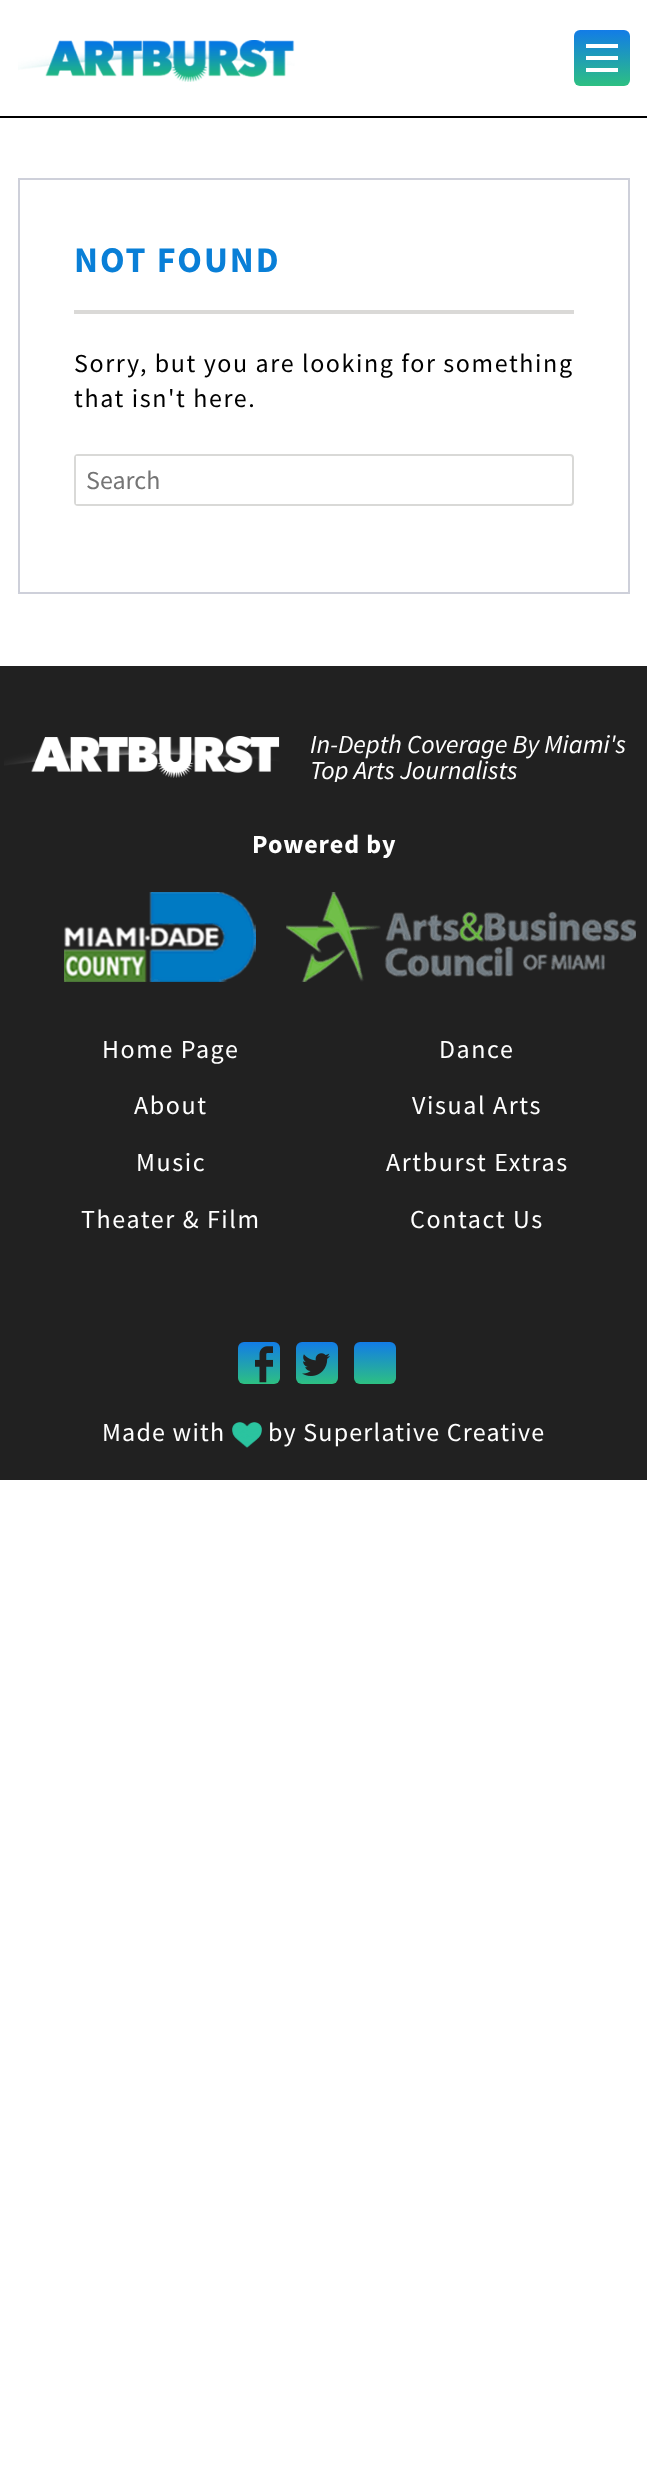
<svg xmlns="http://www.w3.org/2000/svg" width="647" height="2470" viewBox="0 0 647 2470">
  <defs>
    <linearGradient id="g1" gradientUnits="userSpaceOnUse" x1="602" y1="30" x2="602" y2="86"><stop offset="0" stop-color="rgb(18,124,231)"/><stop offset="1" stop-color="rgb(45,192,130)"/></linearGradient>
    <clipPath id="clip1"><rect x="310" y="730" width="320" height="52"/></clipPath>
    <linearGradient id="g2" gradientUnits="userSpaceOnUse" x1="259" y1="1342" x2="259" y2="1384"><stop offset="0" stop-color="rgb(18,124,231)"/><stop offset="1" stop-color="rgb(45,192,130)"/></linearGradient>
    <linearGradient id="g3" gradientUnits="userSpaceOnUse" x1="317" y1="1342" x2="317" y2="1384"><stop offset="0" stop-color="rgb(18,124,231)"/><stop offset="1" stop-color="rgb(45,192,130)"/></linearGradient>
    <linearGradient id="g4" gradientUnits="userSpaceOnUse" x1="375" y1="1342" x2="375" y2="1384"><stop offset="0" stop-color="rgb(18,124,231)"/><stop offset="1" stop-color="rgb(45,192,130)"/></linearGradient>
  </defs>
  <rect width="100%" height="100%" fill="rgb(255,255,255)"/>
  <rect x="0" y="116" width="647" height="2" fill="rgb(0,0,0)"/>
  <image x="18" y="40" width="277" height="42" href="pic1.png"/>
  <rect x="574" y="30" width="56" height="56" rx="6" fill="url(#g1)"/>
  <rect x="586" y="44" width="32" height="4" fill="rgb(255,255,255)"/>
  <rect x="586" y="56" width="32" height="4" fill="rgb(255,255,255)"/>
  <rect x="586" y="68" width="32" height="4" fill="rgb(255,255,255)"/>
  <rect x="19" y="179" width="610" height="414" fill="none" stroke="rgb(206,208,218)" stroke-width="2"/>
  <rect x="74" y="310" width="500" height="4" fill="rgb(218,217,215)"/>
  <text x="74" y="272" font-family="Source Sans Pro" font-size="36" font-weight="bold" letter-spacing="2" fill="rgb(9,127,215)">NOT FOUND</text>
  <g font-family="Source Sans Pro" font-size="26" letter-spacing="1.6" fill="rgb(0,0,0)">
    <text>
      <tspan x="74" y="372">Sorry, but you are looking for something</tspan>
      <tspan x="74" y="407">that isn't here.</tspan>
    </text>
  </g>
  <rect x="75" y="455" width="498" height="50" rx="3" fill="none" stroke="rgb(217,217,215)" stroke-width="2"/>
  <rect x="76" y="456" width="2" height="48" fill="rgb(255,255,255)"/>
  <text x="86" y="489" font-family="Source Sans Pro" font-size="26" fill="rgb(117,117,117)">Search</text>
  <rect x="0" y="666" width="647" height="814" fill="rgb(33,33,33)"/>
  <image x="4" y="736" width="276" height="42" href="pic2.png"/>
  <text x="310" y="753" font-family="Source Sans Pro" font-size="26" font-style="italic" fill="rgb(255,255,255)">In-Depth Coverage By Miami's</text>
  <g clip-path="url(#clip1)">
    <text x="310" y="779" font-family="Source Sans Pro" font-size="26" font-style="italic" fill="rgb(255,255,255)">Top Arts Journalists</text>
  </g>
  <text x="252" y="853" font-family="Source Sans Pro" font-size="26" font-weight="bold" letter-spacing="1" fill="rgb(255,255,255)">Powered by</text>
  <image x="64" y="892" width="192" height="90" href="pic3.png"/>
  <image x="286" y="892" width="350" height="90" href="pic4.png"/>
  <g font-family="Source Sans Pro" font-size="26" letter-spacing="1.6" fill="rgb(255,255,255)">
    <text x="102" y="1058">Home Page</text>
    <text x="134" y="1114">About</text>
    <text x="136" y="1171">Music</text>
    <text x="81" y="1228">Theater &amp; Film</text>
    <text x="439" y="1058">Dance</text>
    <text x="412" y="1114">Visual Arts</text>
    <text x="386" y="1171">Artburst Extras</text>
    <text x="410" y="1228">Contact Us</text>
  </g>
  <rect x="238" y="1342" width="42" height="42" rx="6" fill="url(#g2)"/>
  <image x="255" y="1346" width="18" height="37" href="pic5.png"/>
  <rect x="296" y="1342" width="42" height="42" rx="6" fill="url(#g3)"/>
  <image x="302" y="1353" width="28" height="23" href="pic6.png"/>
  <rect x="354" y="1342" width="42" height="42" rx="6" fill="url(#g4)"/>
  <text x="102" y="1441" font-family="Source Sans Pro" font-size="26" letter-spacing="1.2" fill="rgb(255,255,255)">Made with</text>
  <image x="232" y="1422" width="30" height="26" href="pic7.png"/>
  <text x="268" y="1441" font-family="Source Sans Pro" font-size="26" letter-spacing="1.2" fill="rgb(255,255,255)">by Superlative Creative</text>
</svg>
